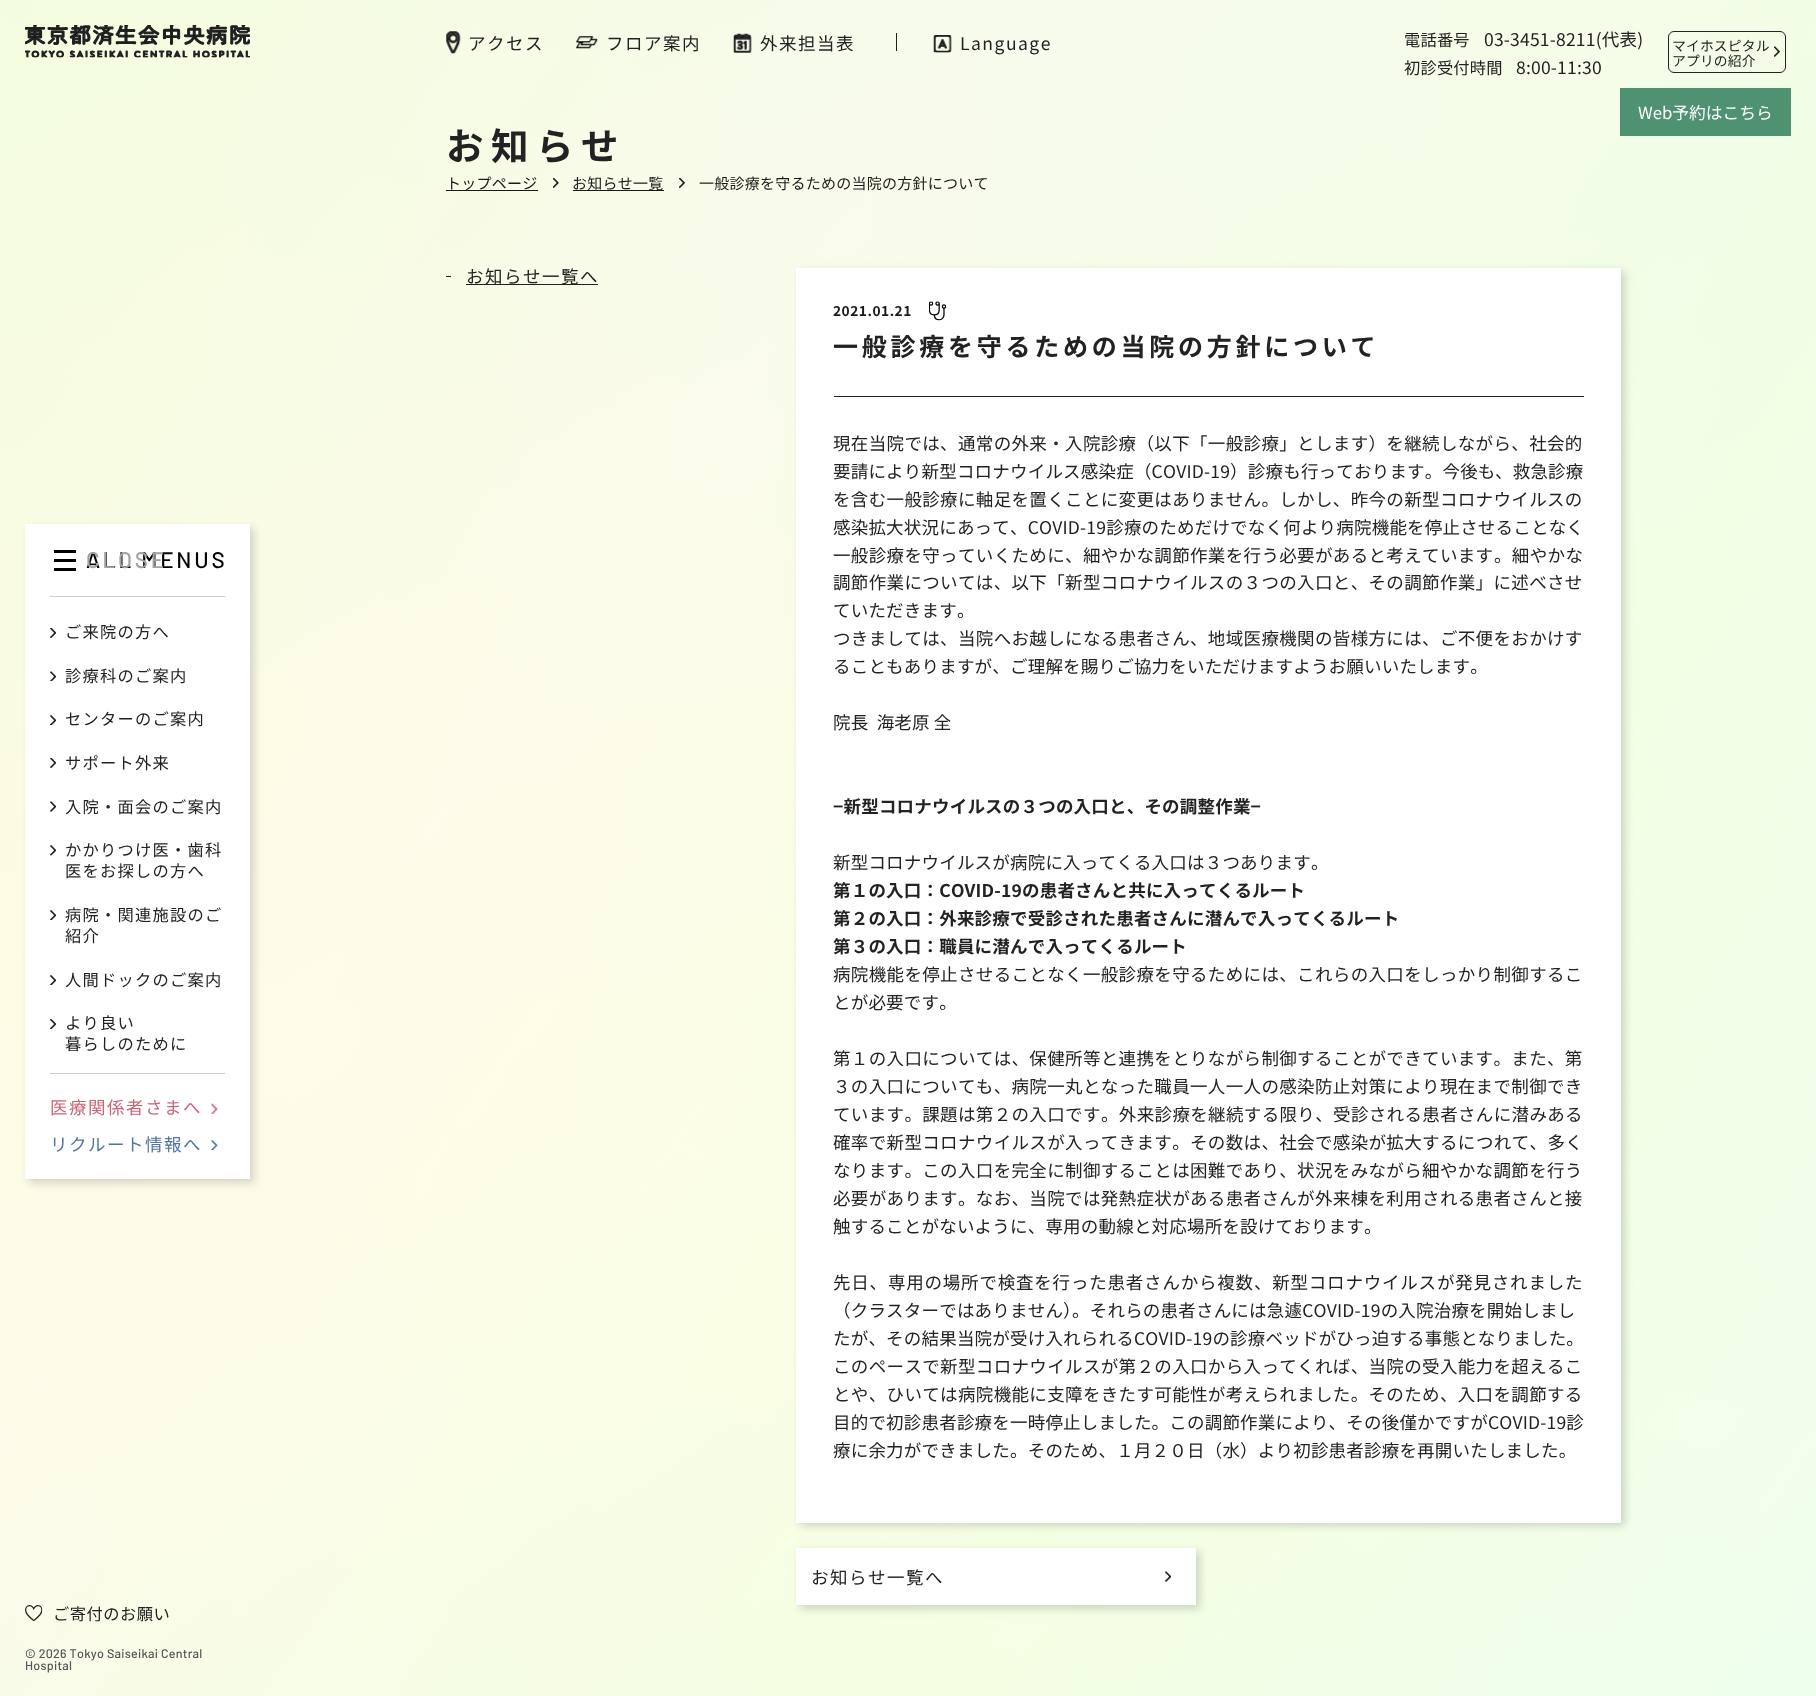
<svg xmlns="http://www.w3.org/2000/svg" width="1816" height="1696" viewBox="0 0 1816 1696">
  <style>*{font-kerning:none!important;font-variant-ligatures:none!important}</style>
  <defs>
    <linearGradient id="g1" gradientUnits="userSpaceOnUse" x1="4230" y1="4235" x2="-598" y2="854"><stop offset="0" stop-color="rgb(247,252,215)"/><stop offset="0.14" stop-color="rgb(235,255,253)"/><stop offset="0.29" stop-color="rgb(230,255,226)"/><stop offset="0.43" stop-color="rgb(244,255,201)"/><stop offset="0.57" stop-color="rgb(233,255,242)"/><stop offset="0.71" stop-color="rgb(244,255,224)"/><stop offset="0.86" stop-color="rgb(255,250,233)"/><stop offset="1" stop-color="rgb(247,252,215)"/></linearGradient>
    <linearGradient id="g2" gradientUnits="userSpaceOnUse" x1="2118" y1="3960" x2="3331" y2="-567"><stop offset="0" stop-color="rgb(229,252,218)" stop-opacity="0.3"/><stop offset="0.25" stop-color="rgb(231,255,237)" stop-opacity="0.3"/><stop offset="0.5" stop-color="rgb(254,255,231)" stop-opacity="0.3"/><stop offset="0.75" stop-color="rgb(231,255,243)" stop-opacity="0.3"/><stop offset="1" stop-color="rgb(238,255,231)" stop-opacity="0.3"/></linearGradient>
  </defs>
  <rect width="100%" height="100%" fill="rgb(255,255,255)"/>
  <rect x="0" y="0" width="1816" height="1696" fill="url(#g1)"/>
  <rect x="0" y="0" width="1816" height="1696" fill="url(#g2)"/>
  <image x="446" y="31" width="15" height="23" href="pic1.png"/>
  <text x="468" y="50" font-family="Noto Sans JP" font-size="17.5" letter-spacing="1.5" fill="rgb(34,34,34)">アクセス</text>
  <image x="576" y="36" width="22" height="13" href="pic2.png"/>
  <text x="606" y="50" font-family="Noto Sans JP" font-size="17.5" letter-spacing="1.5" fill="rgb(34,34,34)">フロア案内</text>
  <image x="733" y="33" width="19" height="20" href="pic3.png"/>
  <text x="760" y="50" font-family="Noto Sans JP" font-size="17.5" letter-spacing="1.5" fill="rgb(34,34,34)">外来担当表</text>
  <rect x="896" y="33" width="1" height="18" fill="rgb(34,34,34)"/>
  <image x="933" y="35" width="19" height="18" href="pic4.png"/>
  <text x="960" y="50" font-family="Noto Sans JP" font-size="17.5" letter-spacing="1.5" fill="rgb(34,34,34)">Language</text>
  <text x="1404" y="46" font-family="Noto Sans JP" font-size="16.25" letter-spacing="0.2" fill="rgb(34,34,34)">電話番号</text>
  <text x="1484" y="46" font-family="Noto Sans JP" font-size="17.5" letter-spacing="0.2" fill="rgb(34,34,34)">03-3451-8211(代表)</text>
  <text x="1404" y="74" font-family="Noto Sans JP" font-size="16.25" letter-spacing="0.2" fill="rgb(34,34,34)">初診受付時間</text>
  <text x="1516" y="74" font-family="Noto Sans JP" font-size="17.5" letter-spacing="0.2" fill="rgb(34,34,34)">8:00-11:30</text>
  <rect x="1668.5" y="31.5" width="117" height="41" rx="5.5" fill="none" stroke="rgb(34,34,34)"/>
  <text x="1672" y="51" font-family="Noto Sans JP" font-size="13.75" letter-spacing="0.2" fill="rgb(34,34,34)">マイホスピタル</text>
  <image x="1774" y="46" width="6" height="11" href="pic5.png"/>
  <text x="1672" y="66" font-family="Noto Sans JP" font-size="13.75" letter-spacing="0.2" fill="rgb(34,34,34)">アプリの紹介</text>
  <rect x="1620" y="88" width="171" height="48" fill="rgb(79,146,114)"/>
  <text x="1638" y="119" font-family="Noto Sans JP" font-size="16.75" fill="rgb(255,255,255)">Web予約はこちら</text>
  <image x="25" y="25" width="225" height="33" href="pic6.png"/>
  <rect x="29" y="528" width="225" height="655" fill="rgba(0,0,0,0.16)" filter="blur(4px)"/>
  <rect x="25" y="524" width="225" height="655" fill="rgb(255,255,255)"/>
  <rect x="54" y="550" width="22" height="3" fill="rgb(0,0,0)"/>
  <rect x="54" y="559" width="22" height="3" fill="rgb(0,0,0)"/>
  <rect x="54" y="568" width="22" height="3" fill="rgb(0,0,0)"/>
  <text x="86" y="568" font-family="Barlow" font-size="22.5" font-weight="500" letter-spacing="2.75" fill="rgb(0,0,0)">ALL MENUS</text>
  <text x="86" y="568" font-family="Barlow" font-size="22.5" font-weight="500" letter-spacing="2.75" fill="rgb(162,162,162)">CLOSE</text>
  <rect x="50" y="596" width="175" height="1" fill="rgb(204,204,204)"/>
  <image x="50" y="628" width="6" height="10" href="pic7.png"/>
  <text x="65" y="638" font-family="Noto Sans JP" font-size="16.25" letter-spacing="1.25" fill="rgb(34,34,34)">ご来院の方へ</text>
  <image x="50" y="671" width="6" height="10" href="pic8.png"/>
  <text x="65" y="682" font-family="Noto Sans JP" font-size="16.25" letter-spacing="1.25" fill="rgb(34,34,34)">診療科のご案内</text>
  <image x="50" y="715" width="6" height="10" href="pic9.png"/>
  <text x="65" y="725" font-family="Noto Sans JP" font-size="16.25" letter-spacing="1.25" fill="rgb(34,34,34)">センターのご案内</text>
  <image x="50" y="758" width="6" height="11" href="pic10.png"/>
  <text x="65" y="769" font-family="Noto Sans JP" font-size="16.25" letter-spacing="1.25" fill="rgb(34,34,34)">サポート外来</text>
  <image x="50" y="801" width="6" height="11" href="pic11.png"/>
  <text x="65" y="813" font-family="Noto Sans JP" font-size="16.25" letter-spacing="1.25" fill="rgb(34,34,34)">入院・面会のご案内</text>
  <image x="50" y="845" width="6" height="11" href="pic12.png"/>
  <g font-family="Noto Sans JP" font-size="16.25" letter-spacing="1.25" fill="rgb(34,34,34)">
    <text>
      <tspan x="65" y="856">かかりつけ医・歯科</tspan>
      <tspan x="65" y="877">医をお探しの方へ</tspan>
    </text>
  </g>
  <image x="50" y="910" width="6" height="10" href="pic9.png"/>
  <g font-family="Noto Sans JP" font-size="16.25" letter-spacing="1.25" fill="rgb(34,34,34)">
    <text>
      <tspan x="65" y="921">病院・関連施設のご</tspan>
      <tspan x="65" y="942">紹介</tspan>
    </text>
  </g>
  <image x="50" y="975" width="6" height="10" href="pic9.png"/>
  <text x="65" y="986" font-family="Noto Sans JP" font-size="16.25" letter-spacing="1.25" fill="rgb(34,34,34)">人間ドックのご案内</text>
  <image x="50" y="1019" width="6" height="10" href="pic13.png"/>
  <g font-family="Noto Sans JP" font-size="16.25" letter-spacing="1.25" fill="rgb(34,34,34)">
    <text>
      <tspan x="65" y="1029">より良い</tspan>
      <tspan x="65" y="1050">暮らしのために</tspan>
    </text>
  </g>
  <rect x="50" y="1073" width="175" height="1" fill="rgb(204,204,204)"/>
  <text x="50" y="1114" font-family="Noto Sans JP" font-size="17.5" letter-spacing="1.5" fill="rgb(204,100,120)">医療関係者さまへ</text>
  <image x="211" y="1103" width="7" height="11" href="pic14.png"/>
  <text x="50" y="1151" font-family="Noto Sans JP" font-size="17.5" letter-spacing="1.5" fill="rgb(82,116,163)">リクルート情報へ</text>
  <image x="211" y="1140" width="7" height="10" href="pic15.png"/>
  <image x="25" y="1605" width="18" height="17" href="pic16.png"/>
  <text x="53" y="1620" font-family="Noto Sans JP" font-size="16.25" letter-spacing="0.5" fill="rgb(34,34,34)">ご寄付のお願い</text>
  <g font-family="Barlow" font-size="12.5" font-weight="500" letter-spacing="0.25" fill="rgb(85,85,85)">
    <text>
      <tspan x="25" y="1658">© 2026 Tokyo Saiseikai Central</tspan>
      <tspan x="25" y="1670">Hospital</tspan>
    </text>
  </g>
  <text x="446" y="160" font-family="Noto Sans JP" font-size="37.5" font-weight="bold" letter-spacing="7.5" fill="rgb(34,34,34)">お知らせ</text>
  <rect x="446" y="190" width="92" height="1" fill="rgb(26,26,26)"/>
  <text x="446" y="189" font-family="Noto Sans JP" font-size="15" letter-spacing="0.25" fill="rgb(26,26,26)">トップページ</text>
  <image x="553" y="178" width="6" height="10" href="pic17.png"/>
  <rect x="573" y="190" width="91" height="1" fill="rgb(26,26,26)"/>
  <text x="572" y="189" font-family="Noto Sans JP" font-size="15" letter-spacing="0.25" fill="rgb(26,26,26)">お知らせ一覧</text>
  <image x="679" y="178" width="6" height="10" href="pic18.png"/>
  <text x="699" y="189" font-family="Noto Sans JP" font-size="15" letter-spacing="0.25" fill="rgb(26,26,26)">一般診療を守るための当院の方針について</text>
  <rect x="446" y="276" width="5" height="1" fill="rgb(34,34,34)"/>
  <rect x="466" y="284" width="132" height="1" fill="rgb(34,34,34)"/>
  <text x="466" y="283" font-family="Noto Sans JP" font-size="17.5" letter-spacing="1.5" fill="rgb(34,34,34)">お知らせ一覧へ</text>
  <rect x="800" y="271" width="825" height="1255" fill="rgba(0,0,0,0.16)" filter="blur(4px)"/>
  <rect x="796" y="268" width="825" height="1255" fill="rgb(255,255,255)"/>
  <text x="833" y="316" font-family="Noto Sans JP" font-size="13.75" font-weight="bold" letter-spacing="0.5" fill="rgb(26,26,26)">2021.01.21</text>
  <image x="929" y="301" width="17" height="20" href="pic19.png"/>
  <rect x="834" y="396" width="750" height="1" fill="rgb(34,34,34)"/>
  <text x="833" y="356" font-family="Noto Sans JP" font-size="25" font-weight="bold" letter-spacing="3.75" fill="rgb(34,34,34)">一般診療を守るための当院の方針について</text>
  <text x="833" y="450" font-family="Noto Sans JP" font-size="17.5" letter-spacing="0.35" fill="rgb(34,34,34)">現在当院では、通常の外来・入院診療（以下「一般診療」とします）を継続しながら、社会的</text>
  <text x="833" y="478" font-family="Noto Sans JP" font-size="17.5" letter-spacing="0.2" fill="rgb(34,34,34)">要請により新型コロナウイルス感染症（COVID-19）診療も行っております。今後も</text>
  <text x="1495" y="478" font-family="Noto Sans JP" font-size="17.5" letter-spacing="0.2" fill="rgb(34,34,34)">、救急診療</text>
  <text x="833" y="506" font-family="Noto Sans JP" font-size="17.5" letter-spacing="0.35" fill="rgb(34,34,34)">を含む一般診療に軸足を置くことに変更はありません。しかし、昨今の新型コロナウイルスの</text>
  <text x="833" y="534" font-family="Noto Sans JP" font-size="17.5" letter-spacing="0.2" fill="rgb(34,34,34)">感染拡大状況にあって、COVID-19診療のためだけでなく何より病院機能を停止させることなく</text>
  <g font-family="Noto Sans JP" font-size="17.5" letter-spacing="0.35" fill="rgb(34,34,34)">
    <text x="833" y="562">一般診療を守っていくために、細やかな調節作業を行う必要があると考えています</text>
    <text x="1494" y="562">。細やかな</text>
    <text x="833" y="589">調節作業については、以下「新型コロナウイルスの３つの入口と、その調節作業」に述べさせ</text>
  </g>
  <text x="833" y="617" font-family="Noto Sans JP" font-size="17.5" letter-spacing="0.2" fill="rgb(34,34,34)">ていただきます。</text>
  <text x="833" y="645" font-family="Noto Sans JP" font-size="17.5" letter-spacing="0.35" fill="rgb(34,34,34)">つきましては、当院へお越しになる患者さん、地域医療機関の皆様方には、ご不便をおかけす</text>
  <g font-family="Noto Sans JP" font-size="17.5" letter-spacing="0.2" fill="rgb(34,34,34)">
    <text x="833" y="673">ることもありますが、ご理解を賜りご協力をいただけますようお願いいたします。</text>
    <text x="833" y="729" xml:space="preserve">院長  海老原 全</text>
  </g>
  <text x="833" y="813" font-family="Noto Sans JP" font-size="17.5" font-weight="bold" letter-spacing="0.2" fill="rgb(34,34,34)">−新型コロナウイルスの３つの入口と、その調整作業−</text>
  <text x="833" y="869" font-family="Noto Sans JP" font-size="17.5" letter-spacing="0.2" fill="rgb(34,34,34)">新型コロナウイルスが病院に入ってくる入口は３つあります。</text>
  <g font-family="Noto Sans JP" font-size="17.5" font-weight="bold" letter-spacing="0.2" fill="rgb(34,34,34)">
    <text>
      <tspan x="833" y="897">第１の入口：COVID-19の患者さんと共に入ってくるルート</tspan>
      <tspan x="833" y="925">第２の入口：外来診療で受診された患者さんに潜んで入ってくるルート</tspan>
      <tspan x="833" y="953">第３の入口：職員に潜んで入ってくるルート</tspan>
    </text>
  </g>
  <text x="833" y="981" font-family="Noto Sans JP" font-size="17.5" letter-spacing="0.35" fill="rgb(34,34,34)">病院機能を停止させることなく一般診療を守るためには、これらの入口をしっかり制御するこ</text>
  <text x="833" y="1009" font-family="Noto Sans JP" font-size="17.5" letter-spacing="0.2" fill="rgb(34,34,34)">とが必要です。</text>
  <g font-family="Noto Sans JP" font-size="17.5" letter-spacing="0.35" fill="rgb(34,34,34)">
    <text>
      <tspan x="833" y="1065">第１の入口については、保健所等と連携をとりながら制御することができています。また、第</tspan>
      <tspan x="833" y="1093">３の入口についても、病院一丸となった職員一人一人の感染防止対策により現在まで制御でき</tspan>
      <tspan x="833" y="1121">ています。課題は第２の入口です</tspan>
    </text>
    <text x="1101" y="1121">。外来診療を継続する限り、受診される患者さんに潜みある</text>
    <text x="833" y="1149">確率で新型コロナウイルスが入ってきます。その数は、社会で感染が拡大するに</text>
    <text x="1476" y="1149">つれて、多く</text>
    <text>
      <tspan x="833" y="1177">なります。この入口を完全に制御することは困難であり、状況をみながら細やかな調節を行う</tspan>
      <tspan x="833" y="1205">必要があります。なお、当院では発熱症状がある患者さんが外来棟を利用される患者さんと接</tspan>
    </text>
  </g>
  <text x="833" y="1233" font-family="Noto Sans JP" font-size="17.5" letter-spacing="0.2" fill="rgb(34,34,34)">触することがないように、専用の動線と対応場所を設けております。</text>
  <text x="833" y="1289" font-family="Noto Sans JP" font-size="17.5" letter-spacing="0.8" fill="rgb(34,34,34)">先日、専用の場所で検査を行った患者さんから複数、新型コロナウイルスが発見されました</text>
  <g font-family="Noto Sans JP" font-size="17.5" letter-spacing="0.2" fill="rgb(34,34,34)">
    <text>
      <tspan x="833" y="1317">（クラスターではありません）。それらの患者さんには急遽COVID-19の入院治療を開始しまし</tspan>
      <tspan x="833" y="1345">たが、その結果当院が受け入れられるCOVID-19の診療ベッドがひっ迫する事態となりました。</tspan>
    </text>
  </g>
  <g font-family="Noto Sans JP" font-size="17.5" letter-spacing="0.35" fill="rgb(34,34,34)">
    <text>
      <tspan x="833" y="1373">このペースで新型コロナウイルスが第２の入口から入ってくれば、当院の受入能力を超えるこ</tspan>
      <tspan x="833" y="1401">とや、ひいては病院機能に支障をきたす可能性が考えられました。そのため、入口を調節する</tspan>
    </text>
  </g>
  <g font-family="Noto Sans JP" font-size="17.5" letter-spacing="0.2" fill="rgb(34,34,34)">
    <text>
      <tspan x="833" y="1429">目的で初診患者診療を一時停止しました。この調節作業により、その後僅かですがCOVID-19診</tspan>
      <tspan x="833" y="1457">療に余力ができました。そのため、１月２０日（水）より初診患者診療を再開いたしました。</tspan>
    </text>
  </g>
  <rect x="800" y="1551" width="400" height="58" fill="rgba(0,0,0,0.16)" filter="blur(4px)"/>
  <rect x="796" y="1548" width="400" height="57" fill="rgb(255,255,255)"/>
  <text x="811" y="1584" font-family="Noto Sans JP" font-size="17.5" letter-spacing="1.5" fill="rgb(34,34,34)">お知らせ一覧へ</text>
  <image x="1165" y="1571" width="6" height="11" href="pic11.png"/>
</svg>
